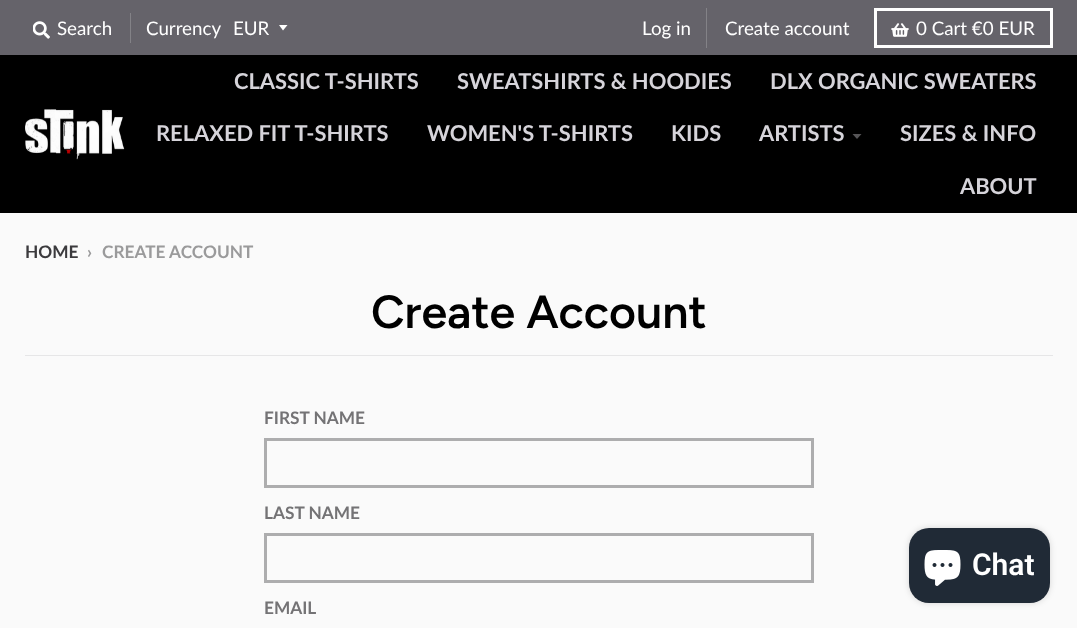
<svg xmlns="http://www.w3.org/2000/svg" width="1077" height="628" viewBox="0 0 1077 628">
  <rect width="100%" height="100%" fill="rgb(250,250,250)"/>
  <rect x="0" y="0" width="1077" height="55" fill="rgb(101,99,106)"/>
  <image x="33" y="21" width="17" height="18" href="pic1.png"/>
  <text x="57" y="35" font-family="Lato" font-size="18.75" fill="rgb(255,255,255)">Search</text>
  <rect x="130" y="13" width="1" height="30" fill="rgb(131,130,135)"/>
  <text x="146" y="35" font-family="Lato" font-size="18.75" fill="rgb(255,255,255)">Currency</text>
  <path d="M279 25L283 30.5L287.5 25Z" fill="rgb(255,255,255)"/>
  <text x="233" y="35" font-family="Lato" font-size="18.75" fill="rgb(255,255,255)">EUR</text>
  <rect x="706" y="8" width="1" height="40" fill="rgb(131,130,135)"/>
  <g font-family="Lato" font-size="18.75" fill="rgb(255,255,255)">
    <text x="642" y="35">Log in</text>
    <text x="725" y="35">Create account</text>
  </g>
  <rect x="875.5" y="9.5" width="176" height="37" fill="none" stroke="rgb(255,255,255)" stroke-width="3"/>
  <image x="891" y="23" width="18" height="14" href="pic2.png"/>
  <text x="916" y="35" font-family="Lato" font-size="18.75" fill="rgb(255,255,255)">0 Cart €0 EUR</text>
  <rect x="0" y="55" width="1077" height="158" fill="rgb(0,0,0)"/>
  <image x="25" y="109" width="100" height="51" href="pic3.png"/>
  <g font-family="Lato" font-size="21.9" font-weight="bold" fill="rgb(214,212,218)">
    <text x="234" y="89">CLASSIC T-SHIRTS</text>
    <text x="457" y="89">SWEATSHIRTS &amp; HOODIES</text>
    <text x="770" y="89">DLX ORGANIC SWEATERS</text>
    <text x="156" y="141">RELAXED FIT T-SHIRTS</text>
    <text x="427" y="141">WOMEN'S T-SHIRTS</text>
    <text x="671" y="141">KIDS</text>
    <text x="759" y="141">ARTISTS</text>
  </g>
  <path d="M852.5 134L857 139L861.5 134Z" fill="rgb(86,85,87)"/>
  <g font-family="Lato" font-size="21.9" font-weight="bold" fill="rgb(214,212,218)">
    <text x="900" y="141">SIZES &amp; INFO</text>
    <text x="960" y="194">ABOUT</text>
  </g>
  <text x="25" y="258" font-family="Lato" font-size="17.25" font-weight="bold" fill="rgb(59,58,61)">HOME</text>
  <g font-family="Lato" font-size="17.25" font-weight="bold" fill="rgb(154,154,155)">
    <text x="87" y="258">›</text>
    <text x="102" y="258">CREATE ACCOUNT</text>
  </g>
  <rect x="25" y="355" width="1028" height="1" fill="rgb(230,230,231)"/>
  <text x="371" y="328" font-family="Figtree" font-size="46.5" font-weight="600" fill="rgb(0,0,0)">Create Account</text>
  <text x="264" y="424" font-family="Lato" font-size="17.25" font-weight="bold" fill="rgb(116,115,117)">FIRST NAME</text>
  <rect x="265.5" y="439.5" width="547" height="47" fill="none" stroke="rgb(173,173,174)" stroke-width="3"/>
  <text x="264" y="519" font-family="Lato" font-size="17.25" font-weight="bold" fill="rgb(116,115,117)">LAST NAME</text>
  <rect x="265.5" y="534.5" width="547" height="47" fill="none" stroke="rgb(173,173,174)" stroke-width="3"/>
  <text x="264" y="614" font-family="Lato" font-size="17.25" font-weight="bold" fill="rgb(116,115,117)">EMAIL</text>
  <rect x="909" y="528" width="141" height="75" rx="20" fill="rgba(0,0,0,0.15)" filter="blur(3px)"/>
  <rect x="909" y="528" width="141" height="75" rx="20" fill="rgb(32,42,54)"/>
  <image x="924" y="550" width="37" height="36" href="pic4.png"/>
  <text x="972" y="575" font-family="Roboto" font-size="30" font-weight="600" fill="rgb(255,255,255)">Chat</text>
</svg>
